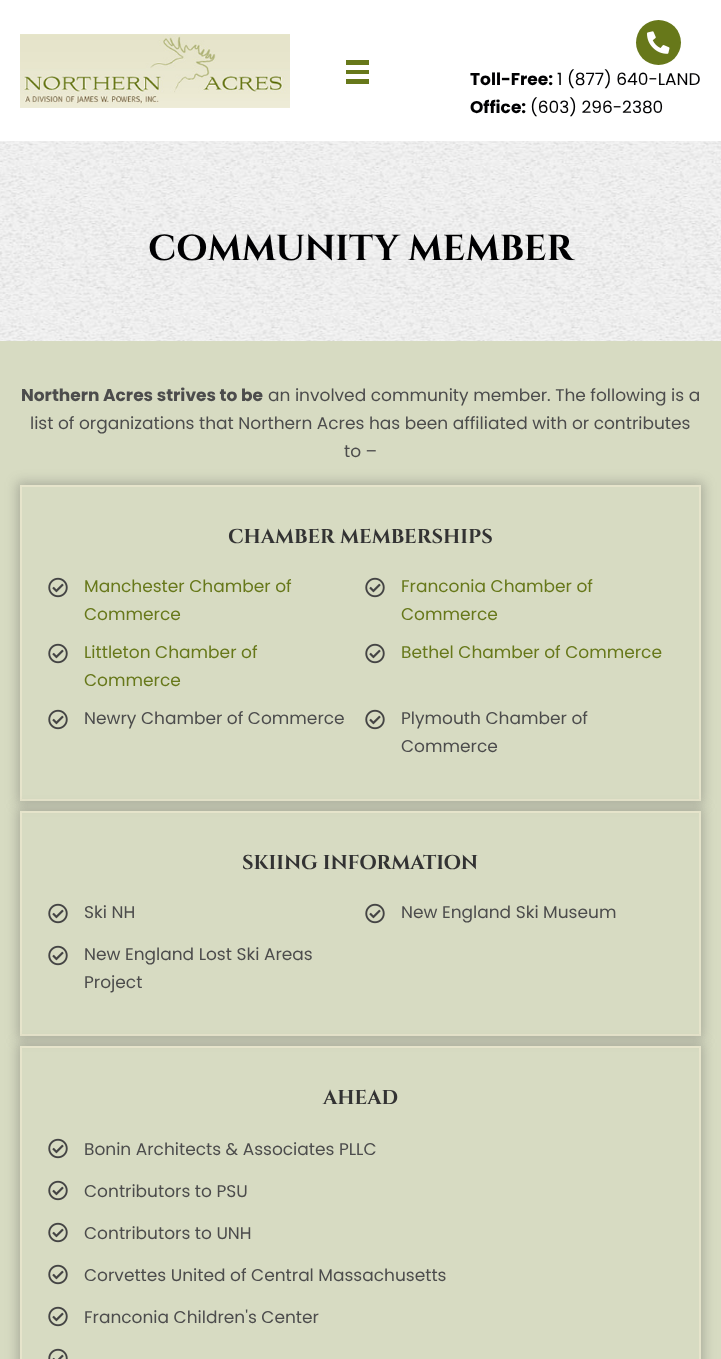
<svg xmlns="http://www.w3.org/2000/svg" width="721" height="1359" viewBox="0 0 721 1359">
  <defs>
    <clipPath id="clip1"><path d="M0 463H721V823H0ZM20 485H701V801H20Z" clip-rule="evenodd"/></clipPath>
    <clipPath id="clip2"><path d="M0 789H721V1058H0ZM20 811H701V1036H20Z" clip-rule="evenodd"/></clipPath>
    <clipPath id="clip3"><path d="M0 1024H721V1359H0ZM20 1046H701V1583H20Z" clip-rule="evenodd"/></clipPath>
  </defs>
  <rect width="100%" height="100%" fill="rgb(255,255,255)"/>
  <image x="20" y="34" width="270" height="74" href="pic1.png"/>
  <rect x="346" y="60" width="23" height="5" fill="rgb(103,120,26)"/>
  <rect x="346" y="70" width="23" height="4" fill="rgb(103,120,26)"/>
  <rect x="346" y="79" width="23" height="5" fill="rgb(103,120,26)"/>
  <circle cx="658.5" cy="42.5" r="22.5" fill="rgb(103,120,26)"/>
  <image x="647" y="31" width="23" height="23" href="pic2.png"/>
  <text x="470" y="85" font-family="Poppins" font-size="17" font-weight="bold" fill="rgb(0,0,2)">Toll-Free:</text>
  <text x="557" y="85" font-family="Poppins" font-size="17" fill="rgb(0,0,2)">1 (877) 640-LAND</text>
  <text x="470" y="113" font-family="Poppins" font-size="17" font-weight="bold" fill="rgb(0,0,2)">Office:</text>
  <text x="530" y="113" font-family="Poppins" font-size="17" fill="rgb(0,0,2)">(603) 296-2380</text>
  <image x="0" y="141" width="721" height="200" href="pic3.png"/>
  <text x="148" y="260" font-family="Cinzel" font-size="36" font-weight="bold" fill="rgb(0,0,2)">COMMUNITY MEMBER</text>
  <rect x="0" y="341" width="721" height="1018" fill="rgb(215,219,194)"/>
  <text x="21" y="401" font-family="Poppins" font-size="17" font-weight="bold" fill="rgb(76,76,76)">Northern Acres strives to be</text>
  <g font-family="Poppins" font-size="17" fill="rgb(76,76,76)">
    <text x="268" y="401">an involved community member. The following is a</text>
    <text x="30" y="429">list of organizations that Northern Acres has been affiliated with or contributes</text>
    <text x="344" y="457">to –</text>
  </g>
  <g clip-path="url(#clip1)">
    <rect x="17" y="482" width="687" height="322" fill="rgba(76,76,76,0.31)" filter="blur(6px)"/>
  </g>
  <rect x="21" y="486" width="679" height="314" fill="none" stroke="rgb(230,228,203)" stroke-width="2"/>
  <text x="228" y="543" font-family="Cinzel" font-size="20" font-weight="bold" fill="rgb(51,51,51)">CHAMBER MEMBERSHIPS</text>
  <image x="48" y="577" width="20" height="21" href="pic4.png"/>
  <g font-family="Poppins" font-size="17" fill="rgb(103,120,26)">
    <text>
      <tspan x="84" y="592">Manchester Chamber of</tspan>
      <tspan x="84" y="620">Commerce</tspan>
    </text>
  </g>
  <image x="365" y="577" width="20" height="21" href="pic4.png"/>
  <g font-family="Poppins" font-size="17" fill="rgb(103,120,26)">
    <text>
      <tspan x="401" y="592">Franconia Chamber of</tspan>
      <tspan x="401" y="620">Commerce</tspan>
    </text>
  </g>
  <image x="48" y="643" width="20" height="21" href="pic4.png"/>
  <g font-family="Poppins" font-size="17" fill="rgb(103,120,26)">
    <text>
      <tspan x="84" y="658">Littleton Chamber of</tspan>
      <tspan x="84" y="686">Commerce</tspan>
    </text>
  </g>
  <image x="365" y="643" width="20" height="21" href="pic4.png"/>
  <text x="401" y="658" font-family="Poppins" font-size="17" fill="rgb(103,120,26)">Bethel Chamber of Commerce</text>
  <image x="48" y="709" width="20" height="21" href="pic4.png"/>
  <text x="84" y="724" font-family="Poppins" font-size="17" fill="rgb(76,76,76)">Newry Chamber of Commerce</text>
  <image x="365" y="709" width="20" height="21" href="pic4.png"/>
  <g font-family="Poppins" font-size="17" fill="rgb(76,76,76)">
    <text>
      <tspan x="401" y="724">Plymouth Chamber of</tspan>
      <tspan x="401" y="752">Commerce</tspan>
    </text>
  </g>
  <g clip-path="url(#clip2)">
    <rect x="17" y="808" width="687" height="231" fill="rgba(76,76,76,0.31)" filter="blur(6px)"/>
  </g>
  <rect x="21" y="812" width="679" height="223" fill="none" stroke="rgb(230,228,203)" stroke-width="2"/>
  <text x="242" y="869" font-family="Cinzel" font-size="20" font-weight="bold" fill="rgb(51,51,51)">SKIING INFORMATION</text>
  <image x="48" y="903" width="20" height="21" href="pic4.png"/>
  <text x="84" y="918" font-family="Poppins" font-size="17" fill="rgb(76,76,76)">Ski NH</text>
  <image x="365" y="903" width="20" height="21" href="pic4.png"/>
  <text x="401" y="918" font-family="Poppins" font-size="17" fill="rgb(76,76,76)">New England Ski Museum</text>
  <image x="48" y="945" width="20" height="21" href="pic4.png"/>
  <g font-family="Poppins" font-size="17" fill="rgb(76,76,76)">
    <text>
      <tspan x="84" y="960">New England Lost Ski Areas</tspan>
      <tspan x="84" y="988">Project</tspan>
    </text>
  </g>
  <g clip-path="url(#clip3)">
    <rect x="17" y="1043" width="687" height="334" fill="rgba(76,76,76,0.31)" filter="blur(6px)"/>
  </g>
  <rect x="21" y="1047" width="679" height="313" fill="none" stroke="rgb(230,228,203)" stroke-width="2"/>
  <text x="323" y="1104" font-family="Cinzel" font-size="20" font-weight="bold" fill="rgb(51,51,51)">AHEAD</text>
  <image x="48" y="1138" width="20" height="21" href="pic4.png"/>
  <text x="84" y="1155" font-family="Poppins" font-size="17" fill="rgb(76,76,76)">Bonin Architects &amp; Associates PLLC</text>
  <image x="48" y="1180" width="20" height="21" href="pic4.png"/>
  <text x="84" y="1197" font-family="Poppins" font-size="17" fill="rgb(76,76,76)">Contributors to PSU</text>
  <image x="48" y="1222" width="20" height="21" href="pic4.png"/>
  <text x="84" y="1239" font-family="Poppins" font-size="17" fill="rgb(76,76,76)">Contributors to UNH</text>
  <image x="48" y="1264" width="20" height="21" href="pic4.png"/>
  <text x="84" y="1281" font-family="Poppins" font-size="17" fill="rgb(76,76,76)">Corvettes United of Central Massachusetts</text>
  <image x="48" y="1306" width="20" height="21" href="pic4.png"/>
  <text x="84" y="1323" font-family="Poppins" font-size="17" fill="rgb(76,76,76)">Franconia Children's Center</text>
  <image x="48" y="1348" width="20" height="11" href="pic5.png"/>
</svg>
